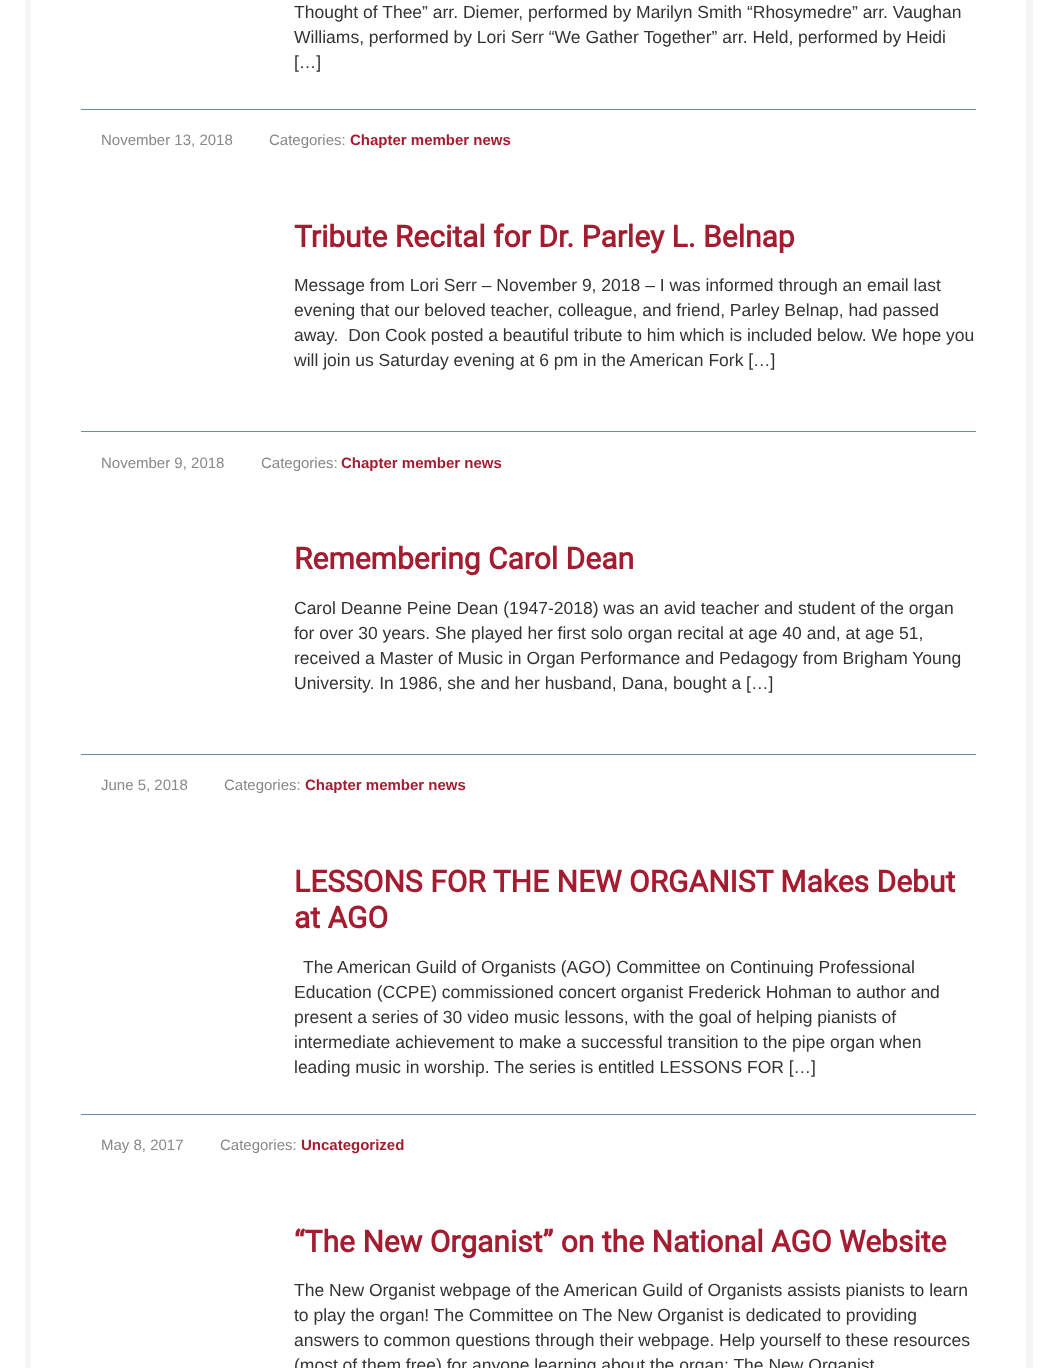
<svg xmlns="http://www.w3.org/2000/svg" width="1057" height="1368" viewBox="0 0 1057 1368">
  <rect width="100%" height="100%" fill="rgb(255,255,255)"/>
  <rect x="1026" y="0" width="7" height="1368" fill="rgb(245,245,245)"/>
  <rect x="25" y="0" width="6" height="1368" fill="rgb(245,245,245)"/>
  <g font-family="Liberation Sans" font-size="17.5" fill="rgb(51,51,51)">
    <text>
      <tspan x="294" y="18">Thought of Thee” arr. Diemer, performed by Marilyn Smith “Rhosymedre” arr. Vaughan</tspan>
      <tspan x="294" y="43">Williams, performed by Lori Serr “We Gather Together” arr. Held, performed by Heidi</tspan>
      <tspan x="294" y="68">[…]</tspan>
    </text>
  </g>
  <rect x="81" y="109" width="895" height="1" fill="rgb(103,142,175)"/>
  <g font-family="Liberation Sans" font-size="15" fill="rgb(136,136,136)">
    <text x="101" y="145">November 13, 2018</text>
    <text x="269" y="145">Categories:</text>
  </g>
  <text x="350" y="145" font-family="Liberation Sans" font-size="15" font-weight="bold" fill="rgb(165,28,48)">Chapter member news</text>
  <text x="294" y="247" font-family="Roboto" font-size="30" font-weight="bold" fill="rgb(165,28,48)">Tribute Recital for Dr. Parley L. Belnap</text>
  <g font-family="Liberation Sans" font-size="17.5" fill="rgb(51,51,51)">
    <text xml:space="preserve"><tspan x="294" y="291">Message from Lori Serr – November 9, 2018 – I was informed through an email last</tspan><tspan x="294" y="316">evening that our beloved teacher, colleague, and friend, Parley Belnap, had passed</tspan><tspan x="294" y="341">away.  Don Cook posted a beautiful tribute to him which is included below. We hope you</tspan><tspan x="294" y="366">will join us Saturday evening at 6 pm in the American Fork […]</tspan></text>
  </g>
  <rect x="81" y="431" width="895" height="1" fill="rgb(103,142,175)"/>
  <g font-family="Liberation Sans" font-size="15" fill="rgb(136,136,136)">
    <text x="101" y="468">November 9, 2018</text>
    <text x="261" y="468">Categories:</text>
  </g>
  <text x="341" y="468" font-family="Liberation Sans" font-size="15" font-weight="bold" fill="rgb(165,28,48)">Chapter member news</text>
  <text x="294" y="569" font-family="Roboto" font-size="30" font-weight="bold" fill="rgb(165,28,48)">Remembering Carol Dean</text>
  <g font-family="Liberation Sans" font-size="17.5" fill="rgb(51,51,51)">
    <text>
      <tspan x="294" y="614">Carol Deanne Peine Dean (1947-2018) was an avid teacher and student of the organ</tspan>
      <tspan x="294" y="639">for over 30 years. She played her first solo organ recital at age 40 and, at age 51,</tspan>
      <tspan x="294" y="664">received a Master of Music in Organ Performance and Pedagogy from Brigham Young</tspan>
      <tspan x="294" y="689">University. In 1986, she and her husband, Dana, bought a […]</tspan>
    </text>
  </g>
  <rect x="81" y="754" width="895" height="1" fill="rgb(103,142,175)"/>
  <g font-family="Liberation Sans" font-size="15" fill="rgb(136,136,136)">
    <text x="101" y="790">June 5, 2018</text>
    <text x="224" y="790">Categories:</text>
  </g>
  <text x="305" y="790" font-family="Liberation Sans" font-size="15" font-weight="bold" fill="rgb(165,28,48)">Chapter member news</text>
  <g font-family="Roboto" font-size="30" font-weight="bold" fill="rgb(165,28,48)">
    <text>
      <tspan x="294" y="892">LESSONS FOR THE NEW ORGANIST Makes Debut</tspan>
      <tspan x="294" y="928">at AGO</tspan>
    </text>
  </g>
  <g font-family="Liberation Sans" font-size="17.5" fill="rgb(51,51,51)">
    <text x="303" y="973">The American Guild of Organists (AGO) Committee on Continuing Professional</text>
    <text>
      <tspan x="294" y="998">Education (CCPE) commissioned concert organist Frederick Hohman to author and</tspan>
      <tspan x="294" y="1023">present a series of 30 video music lessons, with the goal of helping pianists of</tspan>
      <tspan x="294" y="1048">intermediate achievement to make a successful transition to the pipe organ when</tspan>
      <tspan x="294" y="1073">leading music in worship. The series is entitled LESSONS FOR […]</tspan>
    </text>
  </g>
  <rect x="81" y="1114" width="895" height="1" fill="rgb(103,142,175)"/>
  <g font-family="Liberation Sans" font-size="15" fill="rgb(136,136,136)">
    <text x="101" y="1150">May 8, 2017</text>
    <text x="220" y="1150">Categories:</text>
  </g>
  <text x="301" y="1150" font-family="Liberation Sans" font-size="15" font-weight="bold" fill="rgb(165,28,48)">Uncategorized</text>
  <text x="294" y="1252" font-family="Roboto" font-size="30" font-weight="bold" fill="rgb(165,28,48)">“The New Organist” on the National AGO Website</text>
  <g font-family="Liberation Sans" font-size="17.5" fill="rgb(51,51,51)">
    <text>
      <tspan x="294" y="1296">The New Organist webpage of the American Guild of Organists assists pianists to learn</tspan>
      <tspan x="294" y="1321">to play the organ! The Committee on The New Organist is dedicated to providing</tspan>
      <tspan x="294" y="1346">answers to common questions through their webpage. Help yourself to these resources</tspan>
      <tspan x="294" y="1371">(most of them free) for anyone learning about the organ: The New Organist</tspan>
    </text>
  </g>
</svg>
